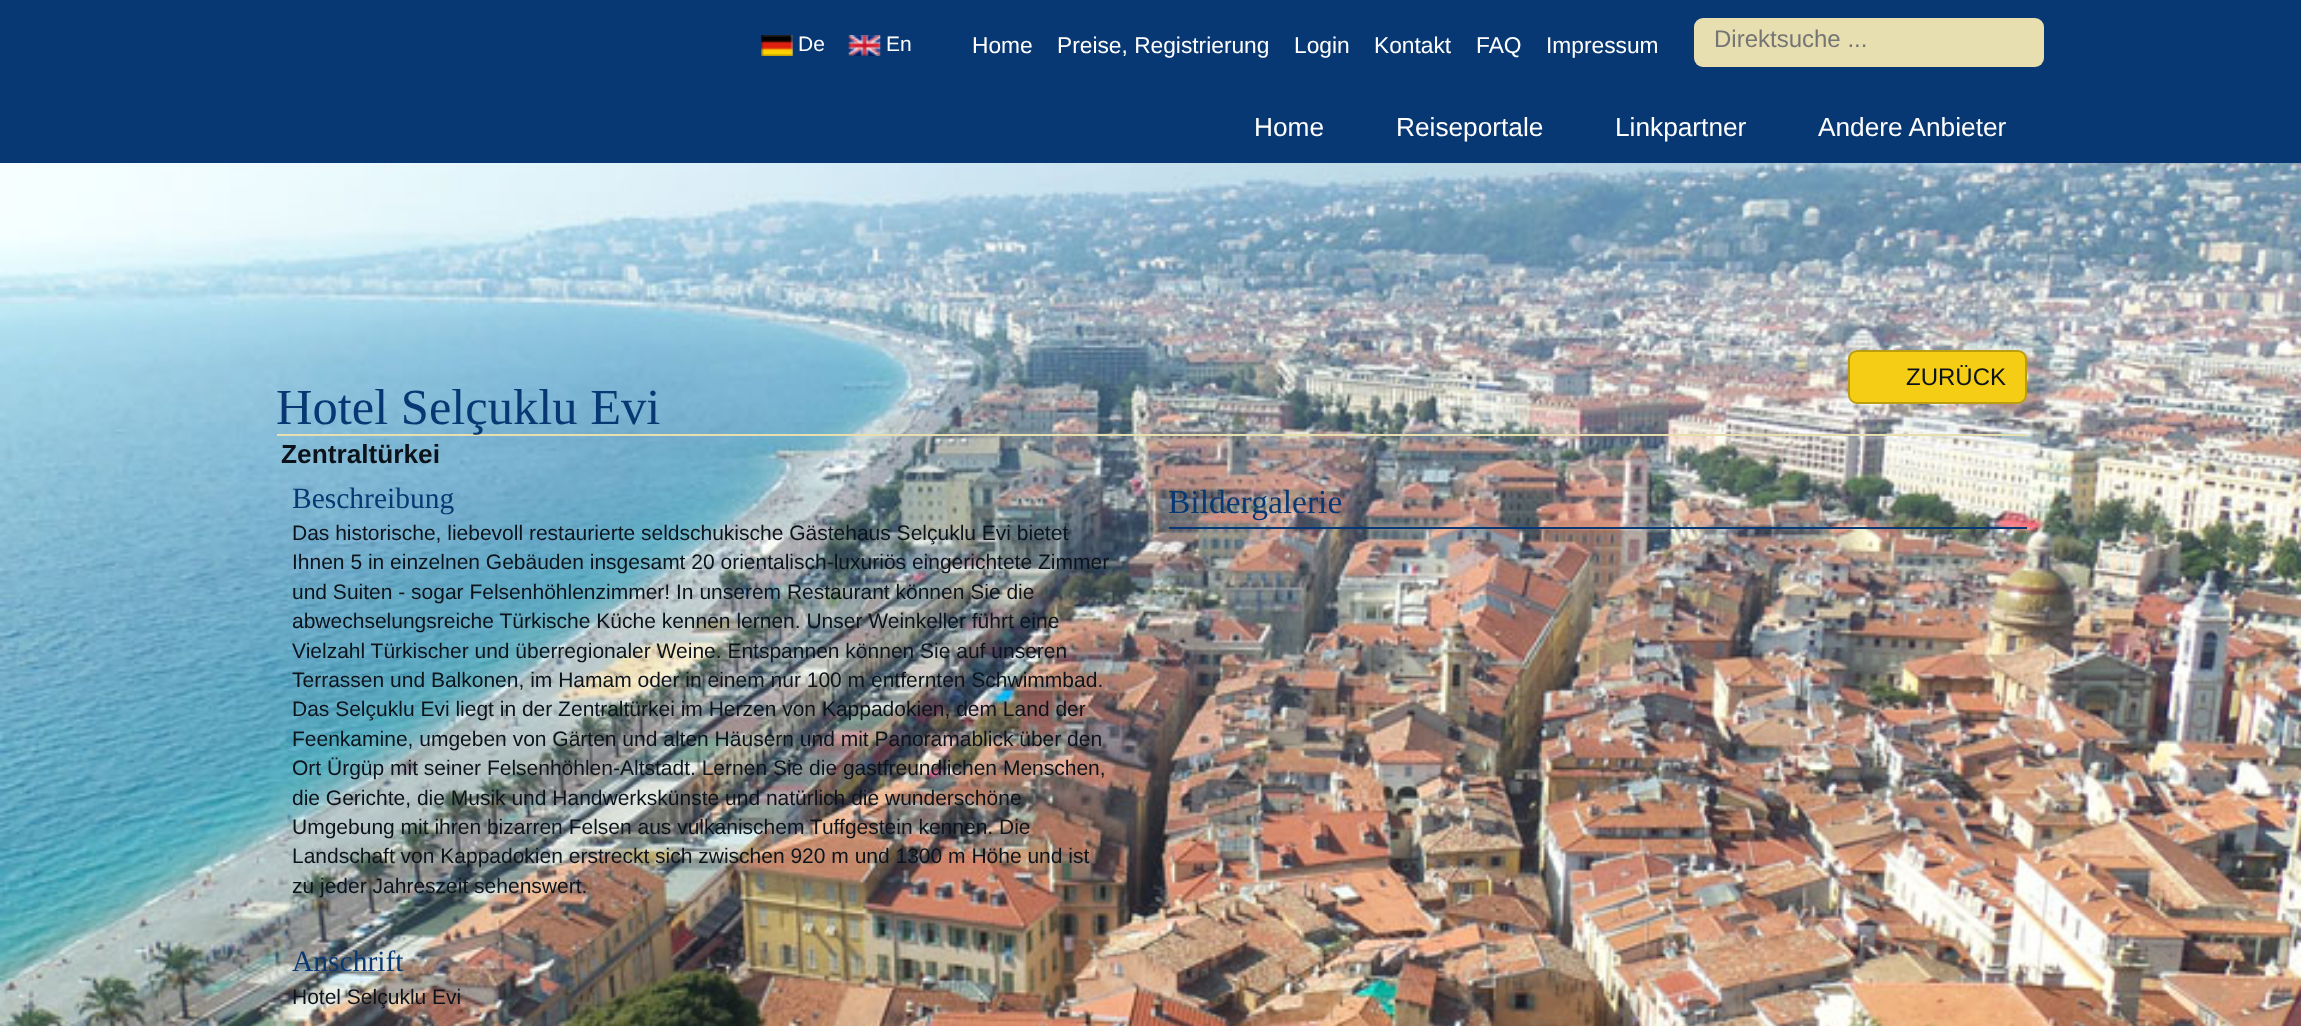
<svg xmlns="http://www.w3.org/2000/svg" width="2301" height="1026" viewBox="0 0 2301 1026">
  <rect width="100%" height="100%" fill="rgb(255,255,255)"/>
  <rect x="0" y="0" width="2301" height="163" fill="rgb(8,56,115)"/>
  <image x="761" y="35" width="32" height="21" href="pic1.png"/>
  <text x="798" y="51" font-family="Liberation Sans" font-size="21" fill="rgb(255,255,255)">De</text>
  <image x="848" y="35" width="33" height="21" href="pic2.png"/>
  <text x="886" y="51" font-family="Liberation Sans" font-size="21" fill="rgb(255,255,255)">En</text>
  <g font-family="Liberation Sans" font-size="22.75" fill="rgb(255,255,255)">
    <text x="972" y="53">Home</text>
    <text x="1057" y="53">Preise, Registrierung</text>
    <text x="1294" y="53">Login</text>
    <text x="1374" y="53">Kontakt</text>
    <text x="1476" y="53">FAQ</text>
    <text x="1546" y="53">Impressum</text>
  </g>
  <rect x="1694" y="18" width="350" height="49" rx="9" fill="rgb(232,223,176)"/>
  <text x="1714" y="47" font-family="Liberation Sans" font-size="24" fill="rgb(117,117,117)">Direktsuche ...</text>
  <g font-family="Liberation Sans" font-size="26.25" fill="rgb(255,255,255)">
    <text x="1254" y="136">Home</text>
    <text x="1396" y="136">Reiseportale</text>
    <text x="1615" y="136">Linkpartner</text>
    <text x="1818" y="136">Andere Anbieter</text>
  </g>
  <image x="0" y="163" width="2301" height="863" href="pic3.png"/>
  <rect x="277" y="434" width="1750" height="2" fill="rgb(232,223,176)"/>
  <rect x="1849" y="351" width="177" height="52" rx="8" fill="rgb(245,205,20)" stroke="rgb(187,157,18)" stroke-width="2"/>
  <text x="1906" y="385" font-family="Liberation Sans" font-size="24" fill="rgb(11,18,26)">ZURÜCK</text>
  <text x="276" y="424" font-family="Liberation Serif" font-size="50.5" fill="rgb(8,56,115)">Hotel Selçuklu Evi</text>
  <text x="281" y="463" font-family="Liberation Sans" font-size="26.25" font-weight="bold" fill="rgb(11,18,26)">Zentraltürkei</text>
  <text x="292" y="508" font-family="Liberation Serif" font-size="29.5" fill="rgb(8,56,115)">Beschreibung</text>
  <g font-family="Liberation Sans" font-size="21" fill="rgb(11,18,26)">
    <text>
      <tspan x="292" y="540">Das historische, liebevoll restaurierte seldschukische Gästehaus Selçuklu Evi bietet</tspan>
      <tspan x="292" y="569">Ihnen 5 in einzelnen Gebäuden insgesamt 20 orientalisch-luxuriös eingerichtete Zimmer</tspan>
      <tspan x="292" y="599">und Suiten - sogar Felsenhöhlenzimmer! In unserem Restaurant können Sie die</tspan>
      <tspan x="292" y="628">abwechselungsreiche Türkische Küche kennen lernen. Unser Weinkeller führt eine</tspan>
      <tspan x="292" y="658">Vielzahl Türkischer und überregionaler Weine. Entspannen können Sie auf unseren</tspan>
      <tspan x="292" y="687">Terrassen und Balkonen, im Hamam oder in einem nur 100 m entfernten Schwimmbad.</tspan>
      <tspan x="292" y="716">Das Selçuklu Evi liegt in der Zentraltürkei im Herzen von Kappadokien, dem Land der</tspan>
      <tspan x="292" y="746">Feenkamine, umgeben von Gärten und alten Häusern und mit Panoramablick über den</tspan>
      <tspan x="292" y="775">Ort Ürgüp mit seiner Felsenhöhlen-Altstadt. Lernen Sie die gastfreundlichen Menschen,</tspan>
      <tspan x="292" y="805">die Gerichte, die Musik und Handwerkskünste und natürlich die wunderschöne</tspan>
      <tspan x="292" y="834">Umgebung mit ihren bizarren Felsen aus vulkanischem Tuffgestein kennen. Die</tspan>
      <tspan x="292" y="863">Landschaft von Kappadokien erstreckt sich zwischen 920 m und 1300 m Höhe und ist</tspan>
      <tspan x="292" y="893">zu jeder Jahreszeit sehenswert.</tspan>
    </text>
  </g>
  <text x="292" y="971" font-family="Liberation Serif" font-size="29.5" fill="rgb(8,56,115)">Anschrift</text>
  <text x="292" y="1004" font-family="Liberation Sans" font-size="21" fill="rgb(11,18,26)">Hotel Selçuklu Evi</text>
  <rect x="1169" y="527" width="858" height="2" fill="rgb(8,56,115)"/>
  <text x="1168" y="513" font-family="Liberation Serif" font-size="33.5" fill="rgb(8,56,115)">Bildergalerie</text>
</svg>
